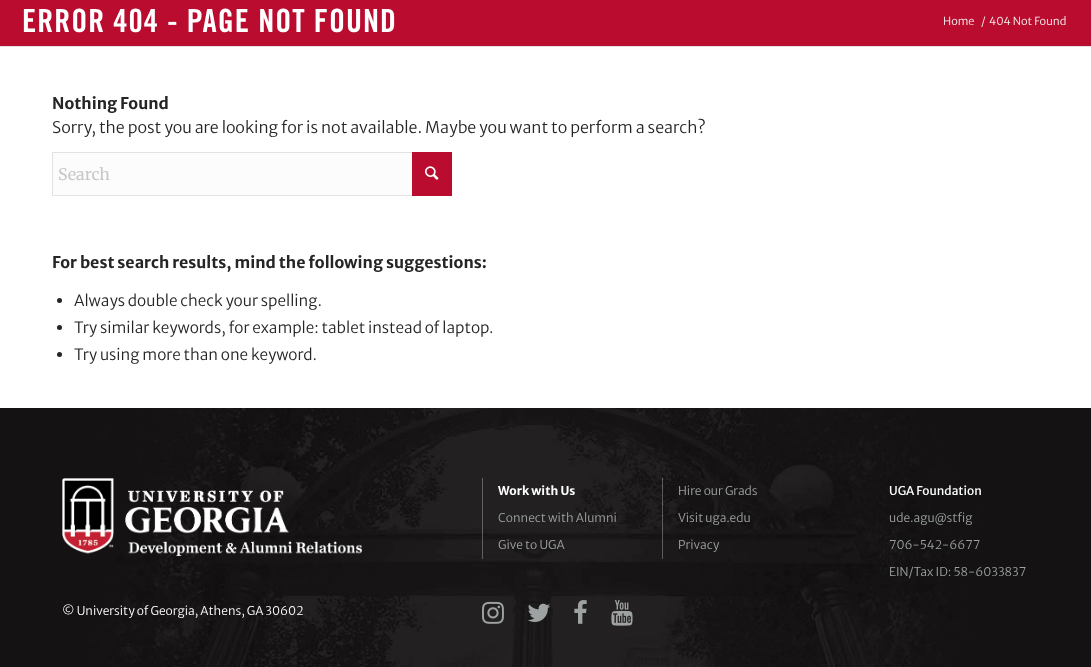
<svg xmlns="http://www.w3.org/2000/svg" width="1091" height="667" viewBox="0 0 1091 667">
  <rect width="100%" height="100%" fill="rgb(255,255,255)"/>
  <rect x="0" y="0" width="1091" height="46" fill="rgb(186,12,47)"/>
  <text x="22" y="32" font-family="'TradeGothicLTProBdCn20'" font-size="32" letter-spacing="1" fill="rgb(255,255,255)">ERROR 404 - PAGE NOT FOUND</text>
  <g font-family="Merriweather Sans" font-size="11" font-weight="300" fill="rgb(243,242,238)">
    <text x="943" y="25">Home</text>
    <text x="981" y="25">/</text>
    <text x="989" y="25">404 Not Found</text>
  </g>
  <rect x="0" y="46" width="1091" height="1" fill="rgb(225,225,225)"/>
  <text x="52" y="109" font-family="Merriweather Sans" font-size="16" font-weight="bold" fill="rgb(37,37,37)">Nothing Found</text>
  <text x="52" y="133" font-family="Merriweather Sans" font-size="16" font-weight="300" fill="rgb(37,37,37)">Sorry, the post you are looking for is not available. Maybe you want to perform a search?</text>
  <rect x="53" y="153" width="359" height="42" fill="rgb(252,252,252)"/>
  <rect x="52.5" y="152.5" width="399" height="43" fill="none" stroke="rgb(225,225,225)"/>
  <text x="58" y="180" font-family="Merriweather" font-size="16" fill="rgb(199,199,199)">Search</text>
  <rect x="412" y="152" width="40" height="44" fill="rgb(186,12,47)"/>
  <image x="425" y="166" width="14" height="14" href="pic1.png"/>
  <text x="52" y="268" font-family="Merriweather Sans" font-size="16" font-weight="bold" fill="rgb(37,37,37)">For best search results, mind the following suggestions:</text>
  <circle cx="59.5" cy="300.5" r="2.5" fill="rgb(37,37,37)"/>
  <text x="74" y="306" font-family="Merriweather Sans" font-size="15.35" font-weight="300" fill="rgb(37,37,37)">Always double check your spelling.</text>
  <circle cx="59.5" cy="327.5" r="2.5" fill="rgb(37,37,37)"/>
  <text x="74" y="333" font-family="Merriweather Sans" font-size="15.35" font-weight="300" fill="rgb(37,37,37)">Try similar keywords, for example: tablet instead of laptop.</text>
  <circle cx="59.5" cy="354.5" r="2.5" fill="rgb(37,37,37)"/>
  <text x="74" y="360" font-family="Merriweather Sans" font-size="15.35" font-weight="300" fill="rgb(37,37,37)">Try using more than one keyword.</text>
  <image x="0" y="408" width="1091" height="259" href="pic2.png"/>
  <image x="62" y="478" width="300" height="78" href="pic3.png"/>
  <rect x="482" y="478" width="1" height="27" fill="rgb(100,99,100)"/>
  <text x="498" y="495" font-family="Merriweather Sans" font-size="12" font-weight="bold" fill="rgb(255,255,255)">Work with Us</text>
  <rect x="662" y="478" width="1" height="27" fill="rgba(255,255,255,0.3)"/>
  <text x="678" y="495" font-family="Merriweather Sans" font-size="12" font-weight="300" fill="rgb(158,162,162)">Hire our Grads</text>
  <rect x="482" y="505" width="1" height="27" fill="rgba(255,255,255,0.3)"/>
  <text x="498" y="522" font-family="Merriweather Sans" font-size="12" font-weight="300" fill="rgb(158,162,162)">Connect with Alumni</text>
  <rect x="662" y="505" width="1" height="27" fill="rgba(255,255,255,0.3)"/>
  <text x="678" y="522" font-family="Merriweather Sans" font-size="12" font-weight="300" fill="rgb(158,162,162)">Visit uga.edu</text>
  <rect x="482" y="532" width="1" height="27" fill="rgba(255,255,255,0.3)"/>
  <text x="498" y="549" font-family="Merriweather Sans" font-size="12" font-weight="300" fill="rgb(158,162,162)">Give to UGA</text>
  <rect x="662" y="532" width="1" height="27" fill="rgba(255,255,255,0.3)"/>
  <text x="678" y="549" font-family="Merriweather Sans" font-size="12" font-weight="300" fill="rgb(158,162,162)">Privacy</text>
  <text x="889" y="495" font-family="Merriweather Sans" font-size="12" fill="rgb(255,255,255)">UGA Foundation</text>
  <g font-family="Merriweather Sans" font-size="12" font-weight="300" fill="rgb(158,162,162)">
    <text x="889" y="522">ude.agu@stfig</text>
    <text x="889" y="549">706-542-6677</text>
    <text x="889" y="576">EIN/Tax ID: 58-6033837</text>
  </g>
  <text x="62" y="615" font-family="Merriweather Sans" font-size="12" font-weight="300" fill="rgb(255,255,255)">© University of Georgia, Athens, GA 30602</text>
  <image x="482" y="601" width="22" height="23" href="pic4.png"/>
  <image x="528" y="603" width="22" height="19" href="pic5.png"/>
  <image x="574" y="600" width="13" height="24" href="pic6.png"/>
  <image x="611" y="600" width="22" height="26" href="pic7.png"/>
</svg>
